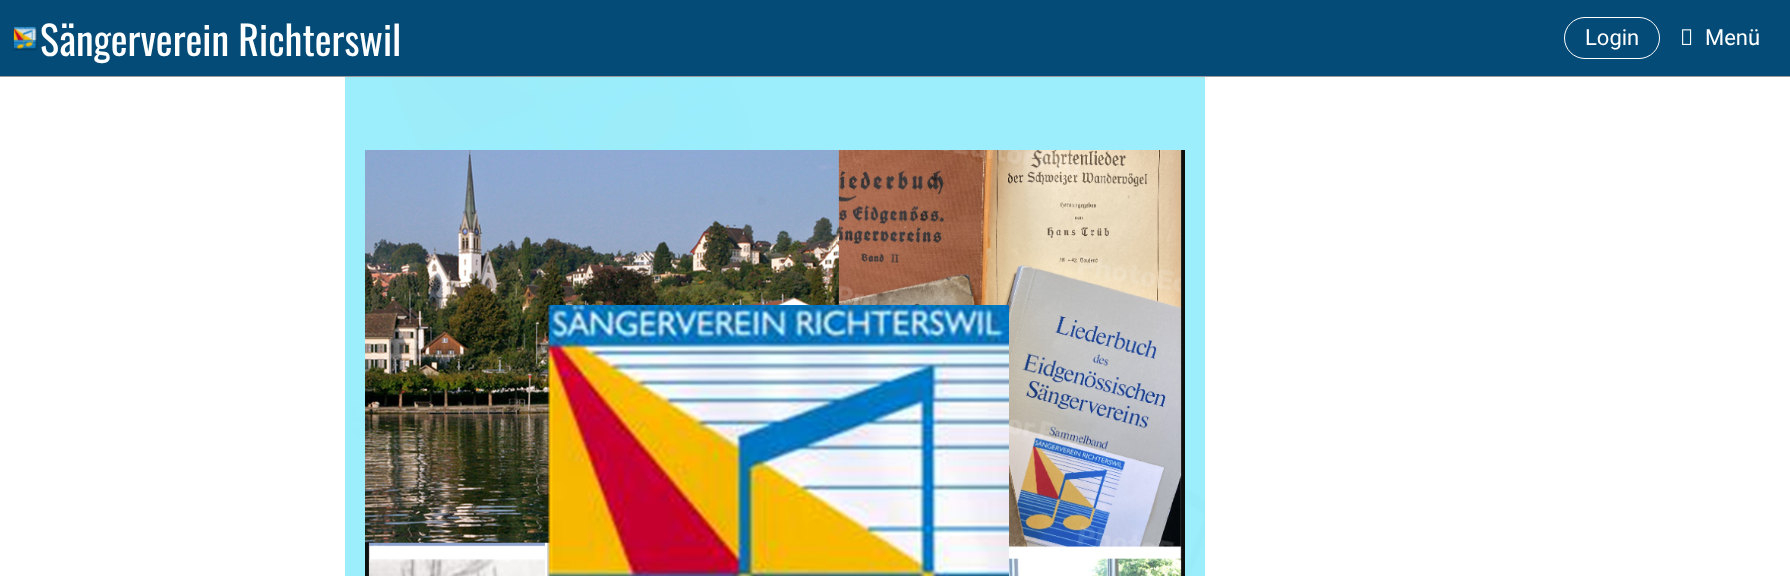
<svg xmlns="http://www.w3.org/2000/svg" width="1790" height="576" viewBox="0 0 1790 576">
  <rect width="100%" height="100%" fill="rgb(255,255,255)"/>
  <rect x="345" y="77" width="860" height="499" fill="rgb(157,238,252)"/>
  <rect x="0" y="0" width="1790" height="76" fill="rgb(4,76,119)"/>
  <rect x="0" y="76" width="1790" height="1" fill="rgb(153,153,153)"/>
  <image x="13" y="26" width="25" height="25" href="pic1.png"/>
  <text x="40" y="56" font-family="Oswald" font-size="40" fill="rgb(255,255,255)">Sängerverein Richterswil</text>
  <rect x="1564.5" y="17.5" width="95" height="41" rx="20.5" fill="none" stroke="rgb(255,255,255)"/>
  <text x="1585" y="45" font-family="Roboto" font-size="22" fill="rgb(255,255,255)">Login</text>
  <image x="1682" y="29" width="10" height="16" href="pic2.png"/>
  <text x="1705" y="45" font-family="Roboto" font-size="22" fill="rgb(255,255,255)">Menü</text>
  <image x="348" y="77" width="857" height="499" href="pic3.png"/>
  <image x="365" y="150" width="820" height="426" href="pic4.png"/>
</svg>
